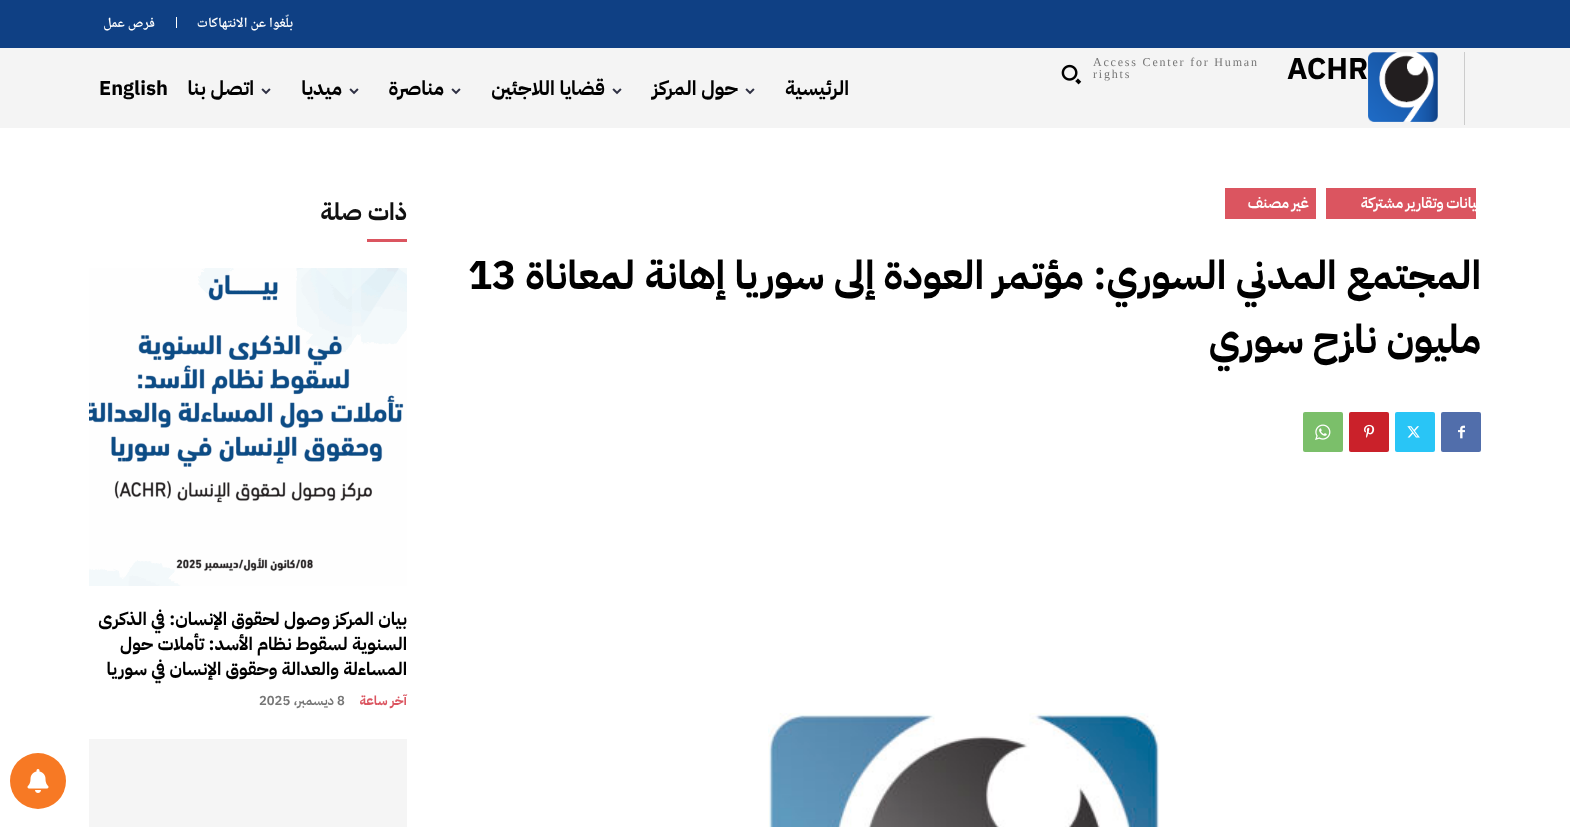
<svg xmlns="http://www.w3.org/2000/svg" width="1570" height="827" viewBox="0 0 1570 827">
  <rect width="100%" height="100%" fill="rgb(255,255,255)"/>
  <rect x="0" y="0" width="1570" height="48" fill="rgb(15,64,132)"/>
  <text x="293" y="27" font-family="Noto Naskh Arabic" font-size="14" font-weight="600" direction="rtl" fill="rgb(255,255,255)">بلّغوا عن الانتهاكات</text>
  <rect x="176" y="17" width="1" height="11" fill="rgb(255,255,255)"/>
  <text x="155" y="27" font-family="Noto Naskh Arabic" font-size="14" font-weight="600" direction="rtl" fill="rgb(255,255,255)">فرص عمل</text>
  <rect x="0" y="48" width="1570" height="80" fill="rgb(244,244,244)"/>
  <rect x="1464" y="52" width="1" height="73" fill="rgb(204,204,204)"/>
  <image x="1368" y="52" width="70" height="70" href="pic1.png"/>
  <text x="1287" y="79" font-family="IBM Plex Sans Arabic" font-size="30" font-weight="bold" fill="rgb(0,0,0)">ACHR</text>
  <g font-family="Liberation Serif" font-size="12" letter-spacing="1.8" fill="rgb(118,118,118)">
    <text>
      <tspan x="1093" y="66">Access Center for Human</tspan>
      <tspan x="1093" y="78">rights</tspan>
    </text>
  </g>
  <image x="1061" y="64" width="21" height="21" href="pic2.png"/>
  <text x="849" y="95" font-family="IBM Plex Sans Arabic" font-size="20" font-weight="bold" direction="rtl" fill="rgb(0,0,0)">الرئيسية</text>
  <image x="745" y="88" width="10" height="7" href="pic3.png"/>
  <text x="738" y="95" font-family="IBM Plex Sans Arabic" font-size="20" font-weight="bold" direction="rtl" fill="rgb(0,0,0)">حول المركز</text>
  <image x="612" y="88" width="10" height="7" href="pic3.png"/>
  <text x="605" y="95" font-family="IBM Plex Sans Arabic" font-size="20" font-weight="bold" direction="rtl" fill="rgb(0,0,0)">قضايا اللاجئين</text>
  <image x="451" y="88" width="10" height="7" href="pic3.png"/>
  <text x="444" y="95" font-family="IBM Plex Sans Arabic" font-size="20" font-weight="bold" direction="rtl" fill="rgb(0,0,0)">مناصرة</text>
  <image x="349" y="88" width="10" height="7" href="pic3.png"/>
  <text x="342" y="95" font-family="IBM Plex Sans Arabic" font-size="20" font-weight="bold" direction="rtl" fill="rgb(0,0,0)">ميديا</text>
  <image x="261" y="88" width="10" height="7" href="pic3.png"/>
  <text x="254" y="95" font-family="IBM Plex Sans Arabic" font-size="20" font-weight="bold" direction="rtl" fill="rgb(0,0,0)">اتصل بنا</text>
  <text x="99" y="95" font-family="IBM Plex Sans Arabic" font-size="20" font-weight="bold" fill="rgb(0,0,0)">English</text>
  <rect x="1326" y="188" width="150" height="31" fill="rgb(219,85,96)"/>
  <text x="1481" y="208" word-spacing="-1" font-family="IBM Plex Sans Arabic" font-size="15" font-weight="600" letter-spacing="1" direction="rtl" fill="rgb(255,255,255)">بيانات وتقارير مشتركة</text>
  <rect x="1225" y="188" width="91" height="31" fill="rgb(219,85,96)"/>
  <text x="1309" y="208" word-spacing="-1" font-family="IBM Plex Sans Arabic" font-size="15" font-weight="600" letter-spacing="1" direction="rtl" fill="rgb(255,255,255)">غير مصنف</text>
  <text x="1481" y="289" font-family="IBM Plex Sans Arabic" font-size="40" font-weight="bold" direction="rtl" fill="rgb(0,0,0)">المجتمع المدني السوري: مؤتمر العودة إلى سوريا إهانة لمعاناة</text>
  <text x="468" y="289" font-family="IBM Plex Sans Arabic" font-size="40" font-weight="bold" fill="rgb(0,0,0)">13</text>
  <text x="1481" y="353" font-family="IBM Plex Sans Arabic" font-size="40" font-weight="bold" direction="rtl" fill="rgb(0,0,0)">مليون نازح سوري</text>
  <rect x="1441" y="412" width="40" height="40" rx="2" fill="rgb(81,110,171)"/>
  <image x="1458" y="425" width="7" height="14" href="pic4.png"/>
  <rect x="1395" y="412" width="40" height="40" rx="2" fill="rgb(41,197,246)"/>
  <image x="1407" y="426" width="13" height="12" href="pic5.png"/>
  <rect x="1349" y="412" width="40" height="40" rx="2" fill="rgb(202,33,42)"/>
  <image x="1364" y="424" width="11" height="14" href="pic6.png"/>
  <rect x="1303" y="412" width="40" height="40" rx="2" fill="rgb(123,191,106)"/>
  <image x="1315" y="424" width="16" height="16" href="pic7.png"/>
  <image x="768" y="713" width="392" height="114" href="pic8.png"/>
  <text x="407" y="220" font-family="IBM Plex Sans Arabic" font-size="24" font-weight="bold" direction="rtl" fill="rgb(17,17,17)">ذات صلة</text>
  <rect x="367" y="239" width="40" height="3" fill="rgb(219,85,96)"/>
  <image x="89" y="268" width="318" height="318" href="pic9.png"/>
  <g font-family="IBM Plex Sans Arabic" font-size="18" font-weight="bold" direction="rtl" fill="rgb(0,0,0)">
    <text>
      <tspan x="407" y="625">بيان المركز وصول لحقوق الإنسان: في الذكرى</tspan>
      <tspan x="407" y="650">السنوية لسقوط نظام الأسد: تأملات حول</tspan>
      <tspan x="407" y="675">المساءلة والعدالة وحقوق الإنسان في سوريا</tspan>
    </text>
  </g>
  <text x="407" y="705" font-family="IBM Plex Sans Arabic" font-size="13" font-weight="bold" direction="rtl" fill="rgb(219,85,96)">آخر ساعة</text>
  <text x="337" y="705" font-family="IBM Plex Sans Arabic" font-size="13" font-weight="600" fill="rgb(118,118,118)">8</text>
  <text x="334" y="705" font-family="IBM Plex Sans Arabic" font-size="13" font-weight="600" direction="rtl" fill="rgb(118,118,118)">ديسمبر،</text>
  <text x="259" y="705" font-family="IBM Plex Sans Arabic" font-size="13" font-weight="600" fill="rgb(118,118,118)">2025</text>
  <rect x="89" y="739" width="318" height="88" fill="rgb(245,245,245)"/>
  <circle cx="38" cy="781" r="28" fill="rgb(247,121,36)"/>
  <image x="27" y="769" width="22" height="24" href="pic10.png"/>
</svg>
